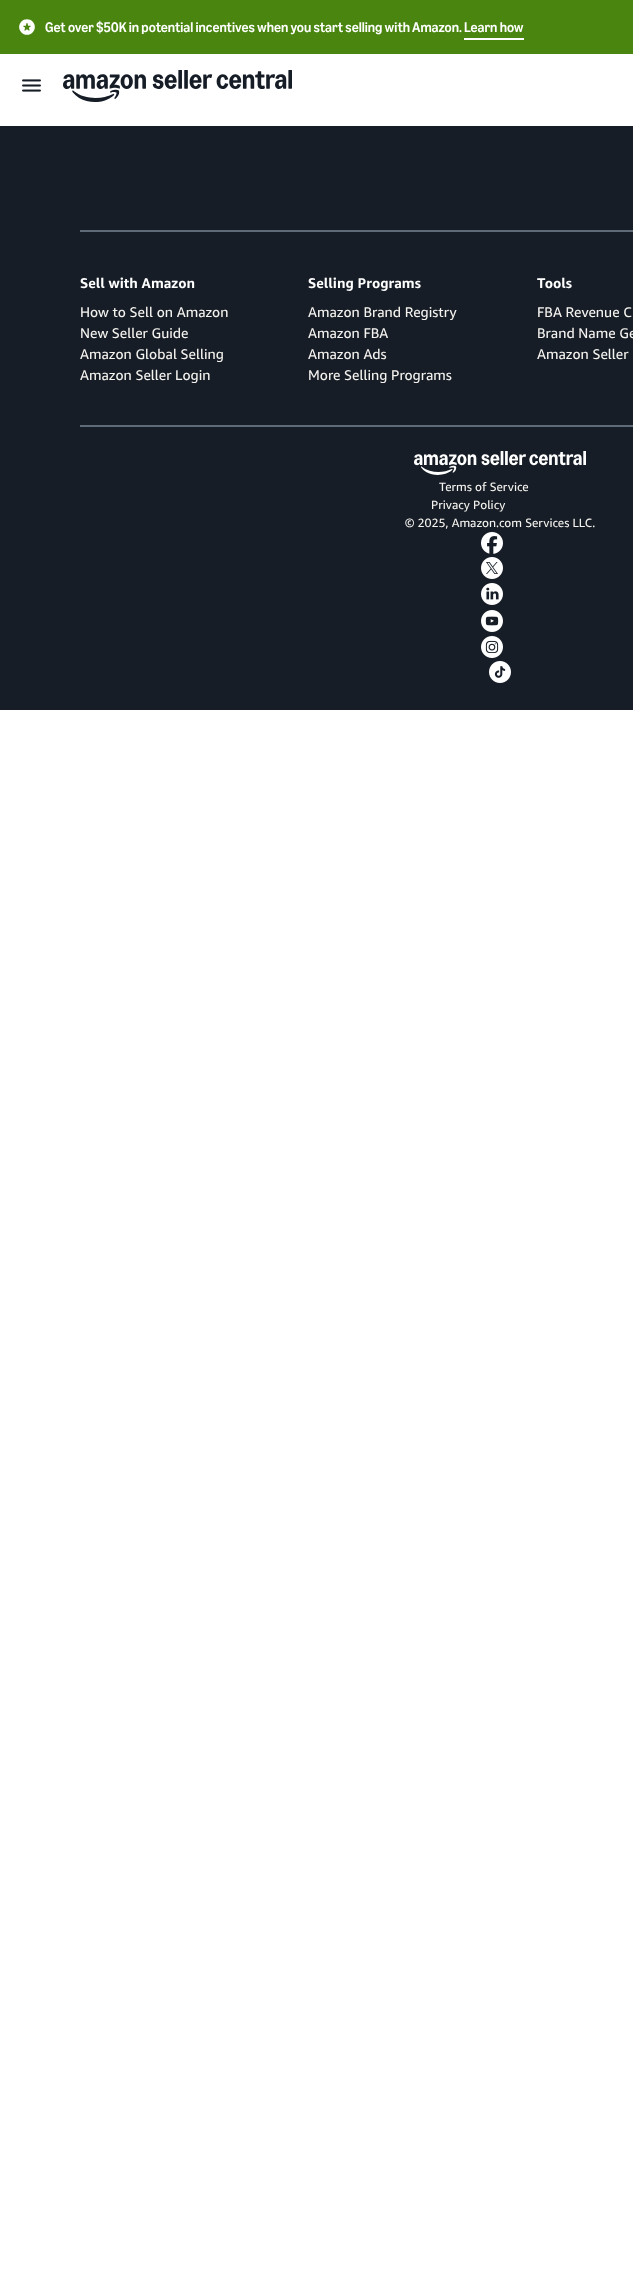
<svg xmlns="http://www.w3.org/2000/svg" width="633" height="2295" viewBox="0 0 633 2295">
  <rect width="100%" height="100%" fill="rgb(255,255,255)"/>
  <rect x="0" y="0" width="633" height="54" fill="rgb(73,133,15)"/>
  <image x="19" y="19" width="16" height="16" href="pic1.png"/>
  <text x="45" y="32" font-family="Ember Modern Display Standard" font-size="14" font-weight="500" fill="rgb(255,255,255)">Get over $50K in potential incentives when you start selling with Amazon. Learn how</text>
  <rect x="464" y="38" width="60" height="2" fill="rgb(255,255,255)"/>
  <image x="22" y="79" width="19" height="13" href="pic2.png"/>
  <image x="63" y="70" width="229" height="32" href="pic3.png"/>
  <rect x="0" y="126" width="633" height="584" fill="rgb(22,29,38)"/>
  <rect x="80" y="230" width="553" height="2" fill="rgb(94,106,120)"/>
  <rect x="80" y="425" width="553" height="2" fill="rgb(94,106,120)"/>
  <text x="80" y="288" font-family="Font" font-size="14" font-weight="bold" fill="rgb(255,255,255)">Sell with Amazon</text>
  <g font-family="Font" font-size="14" fill="rgb(245,243,239)">
    <text>
      <tspan x="80" y="317">How to Sell on Amazon</tspan>
      <tspan x="80" y="338">New Seller Guide</tspan>
      <tspan x="80" y="359">Amazon Global Selling</tspan>
      <tspan x="80" y="380">Amazon Seller Login</tspan>
    </text>
  </g>
  <text x="308" y="288" font-family="Font" font-size="14" font-weight="bold" fill="rgb(255,255,255)">Selling Programs</text>
  <g font-family="Font" font-size="14" fill="rgb(245,243,239)">
    <text>
      <tspan x="308" y="317">Amazon Brand Registry</tspan>
      <tspan x="308" y="338">Amazon FBA</tspan>
      <tspan x="308" y="359">Amazon Ads</tspan>
      <tspan x="308" y="380">More Selling Programs</tspan>
    </text>
  </g>
  <text x="537" y="288" font-family="Font" font-size="14" font-weight="bold" fill="rgb(255,255,255)">Tools</text>
  <g font-family="Font" font-size="14" fill="rgb(245,243,239)">
    <text>
      <tspan x="537" y="317">FBA Revenue C</tspan>
      <tspan x="537" y="338">Brand Name Ge</tspan>
      <tspan x="537" y="359">Amazon Seller</tspan>
    </text>
  </g>
  <image x="414" y="451" width="172" height="24" href="pic4.png"/>
  <g font-family="Font" font-size="12" fill="rgb(245,243,239)">
    <text x="439" y="491">Terms of Service</text>
    <text x="431" y="509">Privacy Policy</text>
    <text x="405" y="527">© 2025, Amazon.com Services LLC.</text>
  </g>
  <image x="481" y="532" width="22" height="22" href="pic5.png"/>
  <image x="481" y="557" width="22" height="22" href="pic6.png"/>
  <image x="481" y="583" width="22" height="22" href="pic7.png"/>
  <image x="481" y="610" width="22" height="22" href="pic8.png"/>
  <image x="481" y="636" width="22" height="22" href="pic9.png"/>
  <image x="489" y="661" width="22" height="22" href="pic10.png"/>
</svg>
